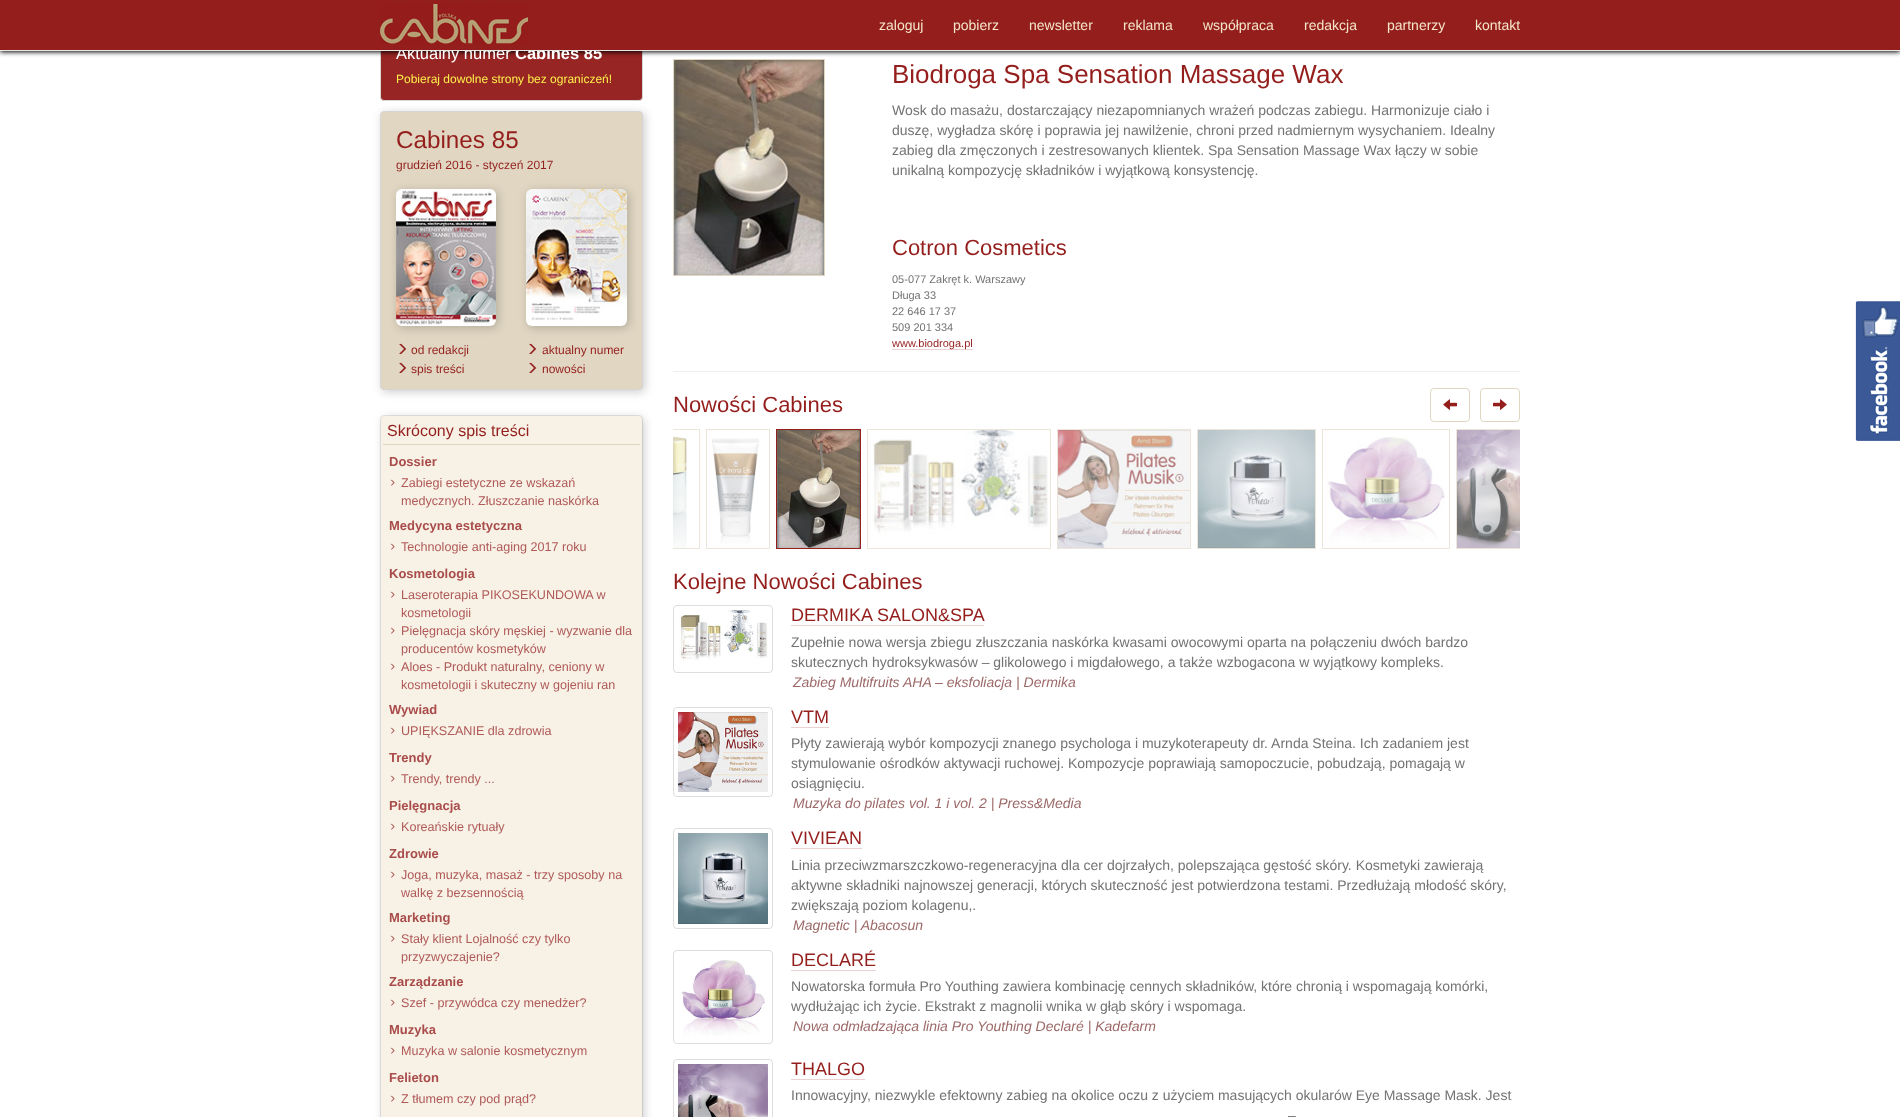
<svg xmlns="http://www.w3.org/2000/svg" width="1900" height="1117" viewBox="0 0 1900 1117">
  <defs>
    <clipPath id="clip1"><rect x="673" y="429" width="847" height="120"/></clipPath>
  </defs>
  <rect width="100%" height="100%" fill="rgb(255,255,255)"/>
  <rect x="382" y="113" width="263" height="279" rx="4" fill="rgba(0,0,0,0.2)" filter="blur(5px)"/>
  <rect x="380.5" y="9.5" width="262" height="91" rx="3.5" fill="rgb(151,37,35)" stroke="rgb(214,214,214)"/>
  <rect x="673.5" y="59.5" width="151" height="216" fill="none" stroke="rgb(224,214,194)"/>
  <image x="674" y="60" width="150" height="215" href="pic6.png"/>
  <rect x="0" y="1" width="1900" height="51" fill="rgb(0,0,0)" filter="blur(2.5px)"/>
  <text x="396" y="59" font-family="Liberation Sans" font-size="16.5" fill="rgb(255,255,255)">Aktualny numer</text>
  <text x="515" y="59" font-family="Liberation Sans" font-size="16.5" font-weight="bold" fill="rgb(255,255,255)">Cabines 85</text>
  <rect x="0" y="0" width="1900" height="50" fill="rgb(148,30,28)"/>
  <rect x="0" y="50" width="1900" height="1" fill="rgb(231,231,231)"/>
  <image x="380" y="4" width="148" height="40" href="pic1.png"/>
  <g font-family="Liberation Sans" font-size="14" fill="rgb(245,229,201)">
    <text x="879" y="30">zaloguj</text>
    <text x="953" y="30">pobierz</text>
    <text x="1029" y="30">newsletter</text>
    <text x="1123" y="30">reklama</text>
    <text x="1203" y="30">współpraca</text>
    <text x="1304" y="30">redakcja</text>
    <text x="1387" y="30">partnerzy</text>
    <text x="1475" y="30">kontakt</text>
  </g>
  <text x="396" y="83" font-family="Liberation Sans" font-size="12" fill="rgb(255,239,76)">Pobieraj dowolne strony bez ograniczeń!</text>
  <rect x="380.5" y="111.5" width="262" height="278" rx="3.5" fill="rgb(224,214,194)" stroke="rgb(213,213,213)"/>
  <text x="396" y="148" font-family="Liberation Sans" font-size="24.25" fill="rgb(148,30,28)">Cabines 85</text>
  <text x="396" y="169" font-family="Liberation Sans" font-size="12" fill="rgb(148,30,28)">grudzień 2016 - styczeń 2017</text>
  <rect x="398" y="191" width="100" height="137" rx="6" fill="rgba(0,0,0,0.2)" filter="blur(5px)"/>
  <image x="396" y="189" width="100" height="137" href="pic2.png"/>
  <image x="399" y="343" width="8" height="11" href="pic3.png"/>
  <text x="411" y="354" font-family="Liberation Sans" font-size="12" fill="rgb(148,30,28)">od redakcji</text>
  <image x="399" y="362" width="8" height="11" href="pic3.png"/>
  <text x="411" y="373" font-family="Liberation Sans" font-size="12" fill="rgb(148,30,28)">spis treści</text>
  <rect x="528" y="191" width="101" height="137" rx="6" fill="rgba(0,0,0,0.2)" filter="blur(5px)"/>
  <image x="526" y="189" width="101" height="137" href="pic4.png"/>
  <image x="529" y="343" width="8" height="11" href="pic3.png"/>
  <text x="542" y="354" font-family="Liberation Sans" font-size="12" fill="rgb(148,30,28)">aktualny numer</text>
  <image x="529" y="362" width="8" height="11" href="pic3.png"/>
  <text x="542" y="373" font-family="Liberation Sans" font-size="12" fill="rgb(148,30,28)">nowości</text>
  <rect x="380.5" y="415.5" width="262" height="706" rx="3.5" fill="rgb(248,248,248)" stroke="rgb(231,231,231)"/>
  <rect x="383" y="418" width="261" height="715" rx="4" fill="rgba(0,0,0,0.2)" filter="blur(5px)"/>
  <rect x="381" y="416" width="261" height="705" rx="4" fill="rgb(247,241,230)"/>
  <rect x="383" y="444" width="257" height="1" fill="rgb(224,214,194)"/>
  <text x="387" y="436" font-family="Liberation Sans" font-size="16" fill="rgb(148,30,28)">Skrócony spis treści</text>
  <text x="389" y="466" font-family="Liberation Sans" font-size="13" font-weight="bold" fill="rgb(169,76,74)">Dossier</text>
  <image x="390" y="479" width="5" height="7" href="pic5.png"/>
  <g font-family="Liberation Sans" font-size="12.6" fill="rgb(176,90,88)">
    <text>
      <tspan x="401" y="487">Zabiegi estetyczne ze wskazań</tspan>
      <tspan x="401" y="505">medycznych. Złuszczanie naskórka</tspan>
    </text>
  </g>
  <text x="389" y="530" font-family="Liberation Sans" font-size="13" font-weight="bold" fill="rgb(169,76,74)">Medycyna estetyczna</text>
  <image x="390" y="543" width="5" height="7" href="pic5.png"/>
  <text x="401" y="551" font-family="Liberation Sans" font-size="12.6" fill="rgb(176,90,88)">Technologie anti-aging 2017 roku</text>
  <text x="389" y="578" font-family="Liberation Sans" font-size="13" font-weight="bold" fill="rgb(169,76,74)">Kosmetologia</text>
  <image x="390" y="591" width="5" height="7" href="pic5.png"/>
  <g font-family="Liberation Sans" font-size="12.6" fill="rgb(176,90,88)">
    <text>
      <tspan x="401" y="599">Laseroterapia PIKOSEKUNDOWA w</tspan>
      <tspan x="401" y="617">kosmetologii</tspan>
    </text>
  </g>
  <image x="390" y="627" width="5" height="7" href="pic5.png"/>
  <g font-family="Liberation Sans" font-size="12.6" fill="rgb(176,90,88)">
    <text>
      <tspan x="401" y="635">Pielęgnacja skóry męskiej - wyzwanie dla</tspan>
      <tspan x="401" y="653">producentów kosmetyków</tspan>
    </text>
  </g>
  <image x="390" y="663" width="5" height="7" href="pic5.png"/>
  <g font-family="Liberation Sans" font-size="12.6" fill="rgb(176,90,88)">
    <text>
      <tspan x="401" y="671">Aloes - Produkt naturalny, ceniony w</tspan>
      <tspan x="401" y="689">kosmetologii i skuteczny w gojeniu ran</tspan>
    </text>
  </g>
  <text x="389" y="714" font-family="Liberation Sans" font-size="13" font-weight="bold" fill="rgb(169,76,74)">Wywiad</text>
  <image x="390" y="727" width="5" height="7" href="pic5.png"/>
  <text x="401" y="735" font-family="Liberation Sans" font-size="12.6" fill="rgb(176,90,88)">UPIĘKSZANIE dla zdrowia</text>
  <text x="389" y="762" font-family="Liberation Sans" font-size="13" font-weight="bold" fill="rgb(169,76,74)">Trendy</text>
  <image x="390" y="775" width="5" height="7" href="pic5.png"/>
  <text x="401" y="783" font-family="Liberation Sans" font-size="12.6" fill="rgb(176,90,88)">Trendy, trendy ...</text>
  <text x="389" y="810" font-family="Liberation Sans" font-size="13" font-weight="bold" fill="rgb(169,76,74)">Pielęgnacja</text>
  <image x="390" y="823" width="5" height="7" href="pic5.png"/>
  <text x="401" y="831" font-family="Liberation Sans" font-size="12.6" fill="rgb(176,90,88)">Koreańskie rytuały</text>
  <text x="389" y="858" font-family="Liberation Sans" font-size="13" font-weight="bold" fill="rgb(169,76,74)">Zdrowie</text>
  <image x="390" y="871" width="5" height="7" href="pic5.png"/>
  <g font-family="Liberation Sans" font-size="12.6" fill="rgb(176,90,88)">
    <text>
      <tspan x="401" y="879">Joga, muzyka, masaż - trzy sposoby na</tspan>
      <tspan x="401" y="897">walkę z bezsennością</tspan>
    </text>
  </g>
  <text x="389" y="922" font-family="Liberation Sans" font-size="13" font-weight="bold" fill="rgb(169,76,74)">Marketing</text>
  <image x="390" y="935" width="5" height="7" href="pic5.png"/>
  <g font-family="Liberation Sans" font-size="12.6" fill="rgb(176,90,88)">
    <text>
      <tspan x="401" y="943">Stały klient Lojalność czy tylko</tspan>
      <tspan x="401" y="961">przyzwyczajenie?</tspan>
    </text>
  </g>
  <text x="389" y="986" font-family="Liberation Sans" font-size="13" font-weight="bold" fill="rgb(169,76,74)">Zarządzanie</text>
  <image x="390" y="999" width="5" height="7" href="pic5.png"/>
  <text x="401" y="1007" font-family="Liberation Sans" font-size="12.6" fill="rgb(176,90,88)">Szef - przywódca czy menedżer?</text>
  <text x="389" y="1034" font-family="Liberation Sans" font-size="13" font-weight="bold" fill="rgb(169,76,74)">Muzyka</text>
  <image x="390" y="1047" width="5" height="7" href="pic5.png"/>
  <text x="401" y="1055" font-family="Liberation Sans" font-size="12.6" fill="rgb(176,90,88)">Muzyka w salonie kosmetycznym</text>
  <text x="389" y="1082" font-family="Liberation Sans" font-size="13" font-weight="bold" fill="rgb(169,76,74)">Felieton</text>
  <image x="390" y="1095" width="5" height="7" href="pic5.png"/>
  <text x="401" y="1103" font-family="Liberation Sans" font-size="12.6" fill="rgb(176,90,88)">Z tłumem czy pod prąd?</text>
  <text x="892" y="83" font-family="Liberation Sans" font-size="26" fill="rgb(148,30,28)">Biodroga Spa Sensation Massage Wax</text>
  <g font-family="Liberation Sans" font-size="14" fill="rgb(115,115,115)">
    <text>
      <tspan x="892" y="115">Wosk do masażu, dostarczający niezapomnianych wrażeń podczas zabiegu. Harmonizuje ciało i</tspan>
      <tspan x="892" y="135">duszę, wygładza skórę i poprawia jej nawilżenie, chroni przed nadmiernym wysychaniem. Idealny</tspan>
      <tspan x="892" y="155">zabieg dla zmęczonych i zestresowanych klientek. Spa Sensation Massage Wax łączy w sobie</tspan>
      <tspan x="892" y="175">unikalną kompozycję składników i wyjątkową konsystencję.</tspan>
    </text>
  </g>
  <text x="892" y="255" font-family="Liberation Sans" font-size="22" fill="rgb(148,30,28)">Cotron Cosmetics</text>
  <g font-family="Liberation Sans" font-size="11" fill="rgb(115,115,115)">
    <text>
      <tspan x="892" y="283">05-077 Zakręt k. Warszawy</tspan>
      <tspan x="892" y="299">Długa 33</tspan>
      <tspan x="892" y="315">22 646 17 37</tspan>
      <tspan x="892" y="331">509 201 334</tspan>
    </text>
  </g>
  <rect x="892" y="349" width="81" height="1" fill="rgb(234,210,210)"/>
  <text x="892" y="347" font-family="Liberation Sans" font-size="11" fill="rgb(148,30,28)">www.biodroga.pl</text>
  <rect x="673" y="371" width="847" height="1" fill="rgb(238,238,238)"/>
  <text x="673" y="412" font-family="Liberation Sans" font-size="22" fill="rgb(148,30,28)">Nowości Cabines</text>
  <rect x="1430.5" y="388.5" width="39" height="33" rx="3.5" fill="none" stroke="rgb(224,214,194)"/>
  <image x="1443" y="399" width="14" height="11" href="pic7.png"/>
  <rect x="1480.5" y="388.5" width="39" height="33" rx="3.5" fill="none" stroke="rgb(224,214,194)"/>
  <image x="1493" y="399" width="14" height="11" href="pic8.png"/>
  <g clip-path="url(#clip1)">
    <rect x="592.5" y="429.5" width="107" height="119" fill="none" stroke="rgb(236,230,218)"/>
  </g>
  <rect x="706.5" y="429.5" width="63" height="119" fill="none" stroke="rgb(236,230,218)"/>
  <rect x="776.5" y="429.5" width="84" height="119" fill="none" stroke="rgb(148,30,28)"/>
  <rect x="867.5" y="429.5" width="183" height="119" fill="none" stroke="rgb(236,230,218)"/>
  <rect x="1057.5" y="429.5" width="133" height="119" fill="none" stroke="rgb(236,230,218)"/>
  <rect x="1197.5" y="429.5" width="118" height="119" fill="none" stroke="rgb(236,230,218)"/>
  <rect x="1322.5" y="429.5" width="127" height="119" fill="none" stroke="rgb(236,230,218)"/>
  <g clip-path="url(#clip1)">
    <rect x="1456.5" y="429.5" width="113" height="119" fill="none" stroke="rgb(236,230,218)"/>
  </g>
  <image x="673" y="436" width="16" height="112" href="pic9.png"/>
  <image x="712" y="438" width="47" height="106" href="pic10.png"/>
  <image x="777" y="430" width="83" height="118" href="pic11.png"/>
  <image x="868" y="430" width="182" height="104" href="pic12.png"/>
  <image x="1058" y="430" width="132" height="118" href="pic13.png"/>
  <image x="1198" y="430" width="117" height="118" href="pic14.png"/>
  <image x="1327" y="437" width="118" height="106" href="pic15.png"/>
  <image x="1457" y="430" width="63" height="118" href="pic16.png"/>
  <text x="673" y="589" font-family="Liberation Sans" font-size="22" fill="rgb(148,30,28)">Kolejne Nowości Cabines</text>
  <rect x="673.5" y="605.5" width="99" height="67" rx="3.5" fill="none" stroke="rgb(221,221,221)"/>
  <image x="678" y="610" width="90" height="51" href="pic17.png"/>
  <text x="791" y="621" font-family="Liberation Sans" font-size="18" fill="rgb(148,30,28)">DERMIKA SALON&amp;SPA</text>
  <rect x="791" y="625" width="193" height="1" fill="rgb(234,210,210)"/>
  <g font-family="Liberation Sans" font-size="14" fill="rgb(115,115,115)">
    <text>
      <tspan x="791" y="647">Zupełnie nowa wersja zbiegu złuszczania naskórka kwasami owocowymi oparta na połączeniu dwóch bardzo</tspan>
      <tspan x="791" y="667">skutecznych hydroksykwasów – glikolowego i migdałowego, a także wzbogacona w wyjątkowy kompleks.</tspan>
    </text>
  </g>
  <text x="793" y="687" font-family="Liberation Sans" font-size="14" font-style="italic" fill="rgb(156,105,104)">Zabieg Multifruits AHA – eksfoliacja | Dermika</text>
  <rect x="673.5" y="707.5" width="99" height="89" rx="3.5" fill="none" stroke="rgb(221,221,221)"/>
  <image x="678" y="712" width="90" height="80" href="pic18.png"/>
  <text x="791" y="723" font-family="Liberation Sans" font-size="18" fill="rgb(148,30,28)">VTM</text>
  <rect x="791" y="727" width="38" height="1" fill="rgb(234,210,210)"/>
  <g font-family="Liberation Sans" font-size="14" fill="rgb(115,115,115)">
    <text>
      <tspan x="791" y="748">Płyty zawierają wybór kompozycji znanego psychologa i muzykoterapeuty dr. Arnda Steina. Ich zadaniem jest</tspan>
      <tspan x="791" y="768">stymulowanie ośrodków aktywacji ruchowej. Kompozycje poprawiają samopoczucie, pobudzają, pomagają w</tspan>
      <tspan x="791" y="788">osiągnięciu.</tspan>
    </text>
  </g>
  <text x="793" y="808" font-family="Liberation Sans" font-size="14" font-style="italic" fill="rgb(156,105,104)">Muzyka do pilates vol. 1 i vol. 2 | Press&amp;Media</text>
  <rect x="673.5" y="828.5" width="99" height="100" rx="3.5" fill="none" stroke="rgb(221,221,221)"/>
  <image x="678" y="833" width="90" height="91" href="pic19.png"/>
  <text x="791" y="844" font-family="Liberation Sans" font-size="18" fill="rgb(148,30,28)">VIVIEAN</text>
  <rect x="791" y="848" width="71" height="1" fill="rgb(234,210,210)"/>
  <g font-family="Liberation Sans" font-size="14" fill="rgb(115,115,115)">
    <text>
      <tspan x="791" y="870">Linia przeciwzmarszczkowo-regeneracyjna dla cer dojrzałych, polepszająca gęstość skóry. Kosmetyki zawierają</tspan>
      <tspan x="791" y="890">aktywne składniki najnowszej generacji, których skuteczność jest potwierdzona testami. Przedłużają młodość skóry,</tspan>
      <tspan x="791" y="910">zwiększają poziom kolagenu,.</tspan>
    </text>
  </g>
  <text x="793" y="930" font-family="Liberation Sans" font-size="14" font-style="italic" fill="rgb(156,105,104)">Magnetic | Abacosun</text>
  <rect x="673.5" y="950.5" width="99" height="93" rx="3.5" fill="none" stroke="rgb(221,221,221)"/>
  <image x="681" y="960" width="84" height="76" href="pic20.png"/>
  <text x="791" y="966" font-family="Liberation Sans" font-size="18" fill="rgb(148,30,28)">DECLARÉ</text>
  <rect x="791" y="970" width="85" height="1" fill="rgb(234,210,210)"/>
  <g font-family="Liberation Sans" font-size="14" fill="rgb(115,115,115)">
    <text>
      <tspan x="791" y="991">Nowatorska formuła Pro Youthing zawiera kombinację cennych składników, które chronią i wspomagają komórki,</tspan>
      <tspan x="791" y="1011">wydłużając ich życie. Ekstrakt z magnolii wnika w głąb skóry i wspomaga.</tspan>
    </text>
  </g>
  <text x="793" y="1031" font-family="Liberation Sans" font-size="14" font-style="italic" fill="rgb(156,105,104)">Nowa odmładzająca linia Pro Youthing Declaré | Kadefarm</text>
  <rect x="673.5" y="1059.5" width="99" height="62" rx="3.5" fill="none" stroke="rgb(221,221,221)"/>
  <image x="678" y="1064" width="90" height="53" href="pic21.png"/>
  <text x="791" y="1075" font-family="Liberation Sans" font-size="18" fill="rgb(148,30,28)">THALGO</text>
  <rect x="791" y="1079" width="74" height="1" fill="rgb(234,210,210)"/>
  <g font-family="Liberation Sans" font-size="14" fill="rgb(115,115,115)">
    <text x="791" y="1100">Innowacyjny, niezwykle efektowny zabieg na okolice oczu z użyciem masujących okularów Eye Massage Mask. Jest</text>
    <text x="1288" y="1120">–</text>
  </g>
  <image x="1855" y="301" width="45" height="140" href="pic22.png"/>
</svg>
